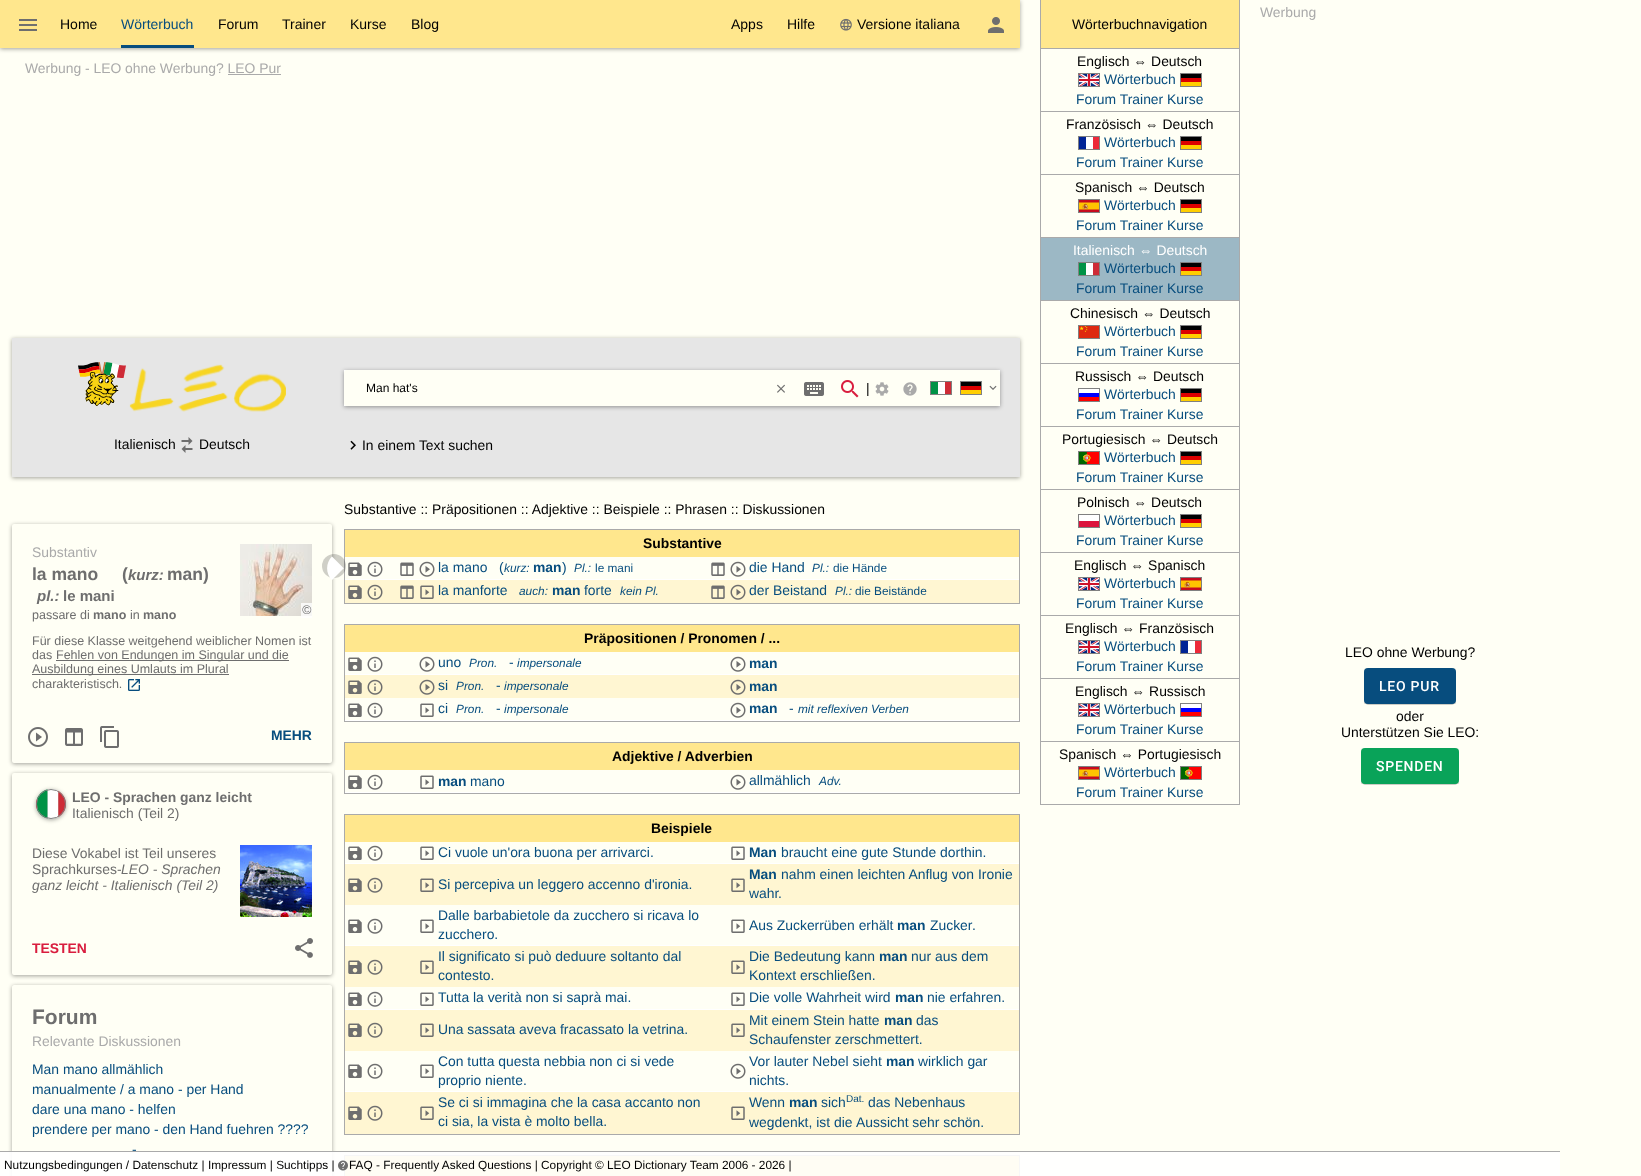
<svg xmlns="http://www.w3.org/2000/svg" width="1641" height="1176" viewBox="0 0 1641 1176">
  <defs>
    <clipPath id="clip1"><rect x="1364" y="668" width="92" height="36"/></clipPath>
    <clipPath id="clip2"><rect x="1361" y="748" width="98" height="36"/></clipPath>
  </defs>
  <rect width="100%" height="100%" fill="rgb(255,255,245)"/>
  <rect x="0" y="1" width="1020" height="48" fill="rgba(0,0,0,0.37)" filter="blur(2px)"/>
  <rect x="0" y="0" width="1020" height="48" fill="rgb(255,231,141)"/>
  <image x="19" y="19" width="18" height="12" href="pic1.png"/>
  <text x="60" y="29" font-family="Liberation Sans" font-size="14" fill="rgb(0,0,0)">Home</text>
  <text x="121" y="29" font-family="Liberation Sans" font-size="14" fill="rgb(7,77,126)">Wörterbuch</text>
  <rect x="121" y="45" width="73" height="3" fill="rgb(7,77,126)"/>
  <g font-family="Liberation Sans" font-size="14" fill="rgb(0,0,0)">
    <text x="218" y="29">Forum</text>
    <text x="282" y="29">Trainer</text>
    <text x="350" y="29">Kurse</text>
    <text x="411" y="29">Blog</text>
    <text x="731" y="29">Apps</text>
    <text x="787" y="29">Hilfe</text>
  </g>
  <image x="840" y="18" width="12" height="13" href="pic2.png"/>
  <text x="857" y="29" font-family="Liberation Sans" font-size="14" fill="rgb(0,0,0)">Versione italiana</text>
  <image x="988" y="17" width="16" height="16" href="pic3.png"/>
  <text x="25" y="73" font-family="Liberation Sans" font-size="13.9" fill="rgb(170,170,170)">Werbung - LEO ohne Werbung? LEO Pur</text>
  <rect x="228" y="74" width="53" height="1" fill="rgb(170,170,170)"/>
  <rect x="12" y="339" width="1008" height="139" fill="rgba(0,0,0,0.37)" filter="blur(2px)"/>
  <rect x="12" y="338" width="1008" height="139" fill="rgb(230,230,230)"/>
  <image x="78" y="362" width="48" height="44" href="pic4.png"/>
  <image x="129" y="364" width="157" height="48" href="pic5.png"/>
  <rect x="344" y="371" width="656" height="36" fill="rgba(0,0,0,0.37)" filter="blur(2px)"/>
  <rect x="344" y="370" width="656" height="36" fill="rgb(255,255,255)"/>
  <rect x="344" y="370" width="656" height="36" rx="3" fill="rgb(255,255,245)"/>
  <text x="366" y="392" font-family="Liberation Sans" font-size="12" fill="rgb(0,0,0)">Man hat's</text>
  <image x="777" y="384" width="8" height="9" href="pic6.png"/>
  <image x="804" y="382" width="20" height="14" href="pic7.png"/>
  <image x="841" y="380" width="18" height="18" href="pic8.png"/>
  <text x="866" y="393" font-family="Liberation Sans" font-size="13.9" fill="rgb(0,0,0)">|</text>
  <image x="875" y="382" width="14" height="14" href="pic9.png"/>
  <image x="903" y="382" width="14" height="14" href="pic10.png"/>
  <rect x="931" y="381" width="7" height="14" fill="rgb(0,146,70)"/>
  <rect x="938" y="381" width="7" height="14" fill="rgb(255,255,255)"/>
  <rect x="945" y="381" width="6" height="14" fill="rgb(206,43,55)"/>
  <rect x="930.5" y="381.5" width="21" height="13" fill="none" stroke="rgb(128,128,128)"/>
  <rect x="960" y="382" width="22" height="4" fill="rgb(0,0,0)"/>
  <rect x="960" y="386" width="22" height="4" fill="rgb(221,0,0)"/>
  <rect x="960" y="390" width="22" height="4" fill="rgb(255,206,0)"/>
  <rect x="960.5" y="381.5" width="21" height="13" fill="none" stroke="rgb(128,128,128)"/>
  <image x="989" y="385" width="8" height="5" href="pic11.png"/>
  <text x="114" y="449" font-family="Liberation Sans" font-size="13.9" fill="rgb(0,0,0)">Italienisch</text>
  <image x="181" y="437" width="12" height="16" href="pic12.png"/>
  <text x="199" y="449" font-family="Liberation Sans" font-size="13.9" fill="rgb(0,0,0)">Deutsch</text>
  <image x="350" y="440" width="6" height="10" href="pic13.png"/>
  <text x="362" y="450" font-family="Liberation Sans" font-size="13.9" fill="rgb(0,0,0)">In einem Text suchen</text>
  <rect x="1041" y="0" width="198" height="48" fill="rgb(255,231,141)"/>
  <rect x="1239" y="0" width="1" height="48" fill="rgb(170,170,170)"/>
  <rect x="1040" y="0" width="1" height="48" fill="rgb(170,170,170)"/>
  <text x="1072" y="29" font-family="Liberation Sans" font-size="13.9" fill="rgb(0,0,0)">Wörterbuchnavigation</text>
  <rect x="1040.5" y="48.5" width="199" height="756" fill="none" stroke="rgb(170,170,170)"/>
  <rect x="1041" y="111" width="198" height="1" fill="rgb(170,170,170)"/>
  <text x="1077" y="66" font-family="Liberation Sans" font-size="13.9" fill="rgb(0,0,0)">Englisch ⇔ Deutsch</text>
  <image x="1079" y="74" width="20" height="12" href="pic14.png"/>
  <rect x="1078.5" y="73.5" width="21" height="13" fill="none" stroke="rgb(128,128,128)"/>
  <text x="1104" y="84" font-family="Liberation Sans" font-size="13.9" fill="rgb(7,77,126)">Wörterbuch</text>
  <rect x="1180" y="74" width="22" height="4" fill="rgb(0,0,0)"/>
  <rect x="1180" y="78" width="22" height="4" fill="rgb(221,0,0)"/>
  <rect x="1180" y="82" width="22" height="4" fill="rgb(255,206,0)"/>
  <rect x="1180.5" y="73.5" width="21" height="13" fill="none" stroke="rgb(128,128,128)"/>
  <text x="1076" y="104" font-family="Liberation Sans" font-size="13.9" fill="rgb(7,77,126)">Forum Trainer Kurse</text>
  <rect x="1041" y="174" width="198" height="1" fill="rgb(170,170,170)"/>
  <text x="1066" y="129" font-family="Liberation Sans" font-size="13.9" fill="rgb(0,0,0)">Französisch ⇔ Deutsch</text>
  <rect x="1093" y="137" width="6" height="12" fill="rgb(237,41,57)"/>
  <rect x="1086" y="137" width="7" height="12" fill="rgb(255,255,255)"/>
  <rect x="1079" y="136" width="7" height="14" fill="rgb(0,35,149)"/>
  <rect x="1078.5" y="136.5" width="21" height="13" fill="none" stroke="rgb(128,128,128)"/>
  <text x="1104" y="147" font-family="Liberation Sans" font-size="13.9" fill="rgb(7,77,126)">Wörterbuch</text>
  <rect x="1180" y="137" width="22" height="4" fill="rgb(0,0,0)"/>
  <rect x="1180" y="141" width="22" height="4" fill="rgb(221,0,0)"/>
  <rect x="1180" y="145" width="22" height="4" fill="rgb(255,206,0)"/>
  <rect x="1180.5" y="136.5" width="21" height="13" fill="none" stroke="rgb(128,128,128)"/>
  <text x="1076" y="167" font-family="Liberation Sans" font-size="13.9" fill="rgb(7,77,126)">Forum Trainer Kurse</text>
  <rect x="1041" y="237" width="198" height="1" fill="rgb(170,170,170)"/>
  <text x="1075" y="192" font-family="Liberation Sans" font-size="13.9" fill="rgb(0,0,0)">Spanisch ⇔ Deutsch</text>
  <image x="1079" y="200" width="20" height="12" href="pic15.png"/>
  <rect x="1078.5" y="199.5" width="21" height="13" fill="none" stroke="rgb(128,128,128)"/>
  <text x="1104" y="210" font-family="Liberation Sans" font-size="13.9" fill="rgb(7,77,126)">Wörterbuch</text>
  <rect x="1180" y="200" width="22" height="4" fill="rgb(0,0,0)"/>
  <rect x="1180" y="204" width="22" height="4" fill="rgb(221,0,0)"/>
  <rect x="1180" y="208" width="22" height="4" fill="rgb(255,206,0)"/>
  <rect x="1180.5" y="199.5" width="21" height="13" fill="none" stroke="rgb(128,128,128)"/>
  <text x="1076" y="230" font-family="Liberation Sans" font-size="13.9" fill="rgb(7,77,126)">Forum Trainer Kurse</text>
  <rect x="1041" y="238" width="198" height="62" fill="rgb(156,184,197)"/>
  <rect x="1041" y="300" width="198" height="1" fill="rgb(170,170,170)"/>
  <text x="1073" y="255" font-family="Liberation Sans" font-size="13.9" fill="rgb(255,255,255)">Italienisch ⇔ Deutsch</text>
  <rect x="1079" y="262" width="7" height="14" fill="rgb(0,146,70)"/>
  <rect x="1086" y="262" width="7" height="14" fill="rgb(255,255,255)"/>
  <rect x="1093" y="262" width="6" height="14" fill="rgb(206,43,55)"/>
  <rect x="1078.5" y="262.5" width="21" height="13" fill="none" stroke="rgb(128,128,128)"/>
  <text x="1104" y="273" font-family="Liberation Sans" font-size="13.9" fill="rgb(7,77,126)">Wörterbuch</text>
  <rect x="1180" y="263" width="22" height="4" fill="rgb(0,0,0)"/>
  <rect x="1180" y="267" width="22" height="4" fill="rgb(221,0,0)"/>
  <rect x="1180" y="271" width="22" height="4" fill="rgb(255,206,0)"/>
  <rect x="1180.5" y="262.5" width="21" height="13" fill="none" stroke="rgb(128,128,128)"/>
  <text x="1076" y="293" font-family="Liberation Sans" font-size="13.9" fill="rgb(7,77,126)">Forum Trainer Kurse</text>
  <rect x="1041" y="363" width="198" height="1" fill="rgb(170,170,170)"/>
  <text x="1070" y="318" font-family="Liberation Sans" font-size="13.9" fill="rgb(0,0,0)">Chinesisch ⇔ Deutsch</text>
  <image x="1079" y="326" width="20" height="12" href="pic16.png"/>
  <rect x="1078.5" y="325.5" width="21" height="13" fill="none" stroke="rgb(128,128,128)"/>
  <text x="1104" y="336" font-family="Liberation Sans" font-size="13.9" fill="rgb(7,77,126)">Wörterbuch</text>
  <rect x="1180" y="326" width="22" height="4" fill="rgb(0,0,0)"/>
  <rect x="1180" y="330" width="22" height="4" fill="rgb(221,0,0)"/>
  <rect x="1180" y="334" width="22" height="4" fill="rgb(255,206,0)"/>
  <rect x="1180.5" y="325.5" width="21" height="13" fill="none" stroke="rgb(128,128,128)"/>
  <text x="1076" y="356" font-family="Liberation Sans" font-size="13.9" fill="rgb(7,77,126)">Forum Trainer Kurse</text>
  <rect x="1041" y="426" width="198" height="1" fill="rgb(170,170,170)"/>
  <text x="1075" y="381" font-family="Liberation Sans" font-size="13.9" fill="rgb(0,0,0)">Russisch ⇔ Deutsch</text>
  <rect x="1078" y="389" width="22" height="4" fill="rgb(255,255,255)"/>
  <rect x="1078" y="397" width="22" height="4" fill="rgb(255,0,0)"/>
  <rect x="1078" y="393" width="22" height="4" fill="rgb(0,0,255)"/>
  <rect x="1078.5" y="388.5" width="21" height="13" fill="none" stroke="rgb(128,128,128)"/>
  <text x="1104" y="399" font-family="Liberation Sans" font-size="13.9" fill="rgb(7,77,126)">Wörterbuch</text>
  <rect x="1180" y="389" width="22" height="4" fill="rgb(0,0,0)"/>
  <rect x="1180" y="393" width="22" height="4" fill="rgb(221,0,0)"/>
  <rect x="1180" y="397" width="22" height="4" fill="rgb(255,206,0)"/>
  <rect x="1180.5" y="388.5" width="21" height="13" fill="none" stroke="rgb(128,128,128)"/>
  <text x="1076" y="419" font-family="Liberation Sans" font-size="13.9" fill="rgb(7,77,126)">Forum Trainer Kurse</text>
  <rect x="1041" y="489" width="198" height="1" fill="rgb(170,170,170)"/>
  <text x="1062" y="444" font-family="Liberation Sans" font-size="13.9" fill="rgb(0,0,0)">Portugiesisch ⇔ Deutsch</text>
  <image x="1079" y="452" width="20" height="12" href="pic17.png"/>
  <rect x="1078.5" y="451.5" width="21" height="13" fill="none" stroke="rgb(128,128,128)"/>
  <text x="1104" y="462" font-family="Liberation Sans" font-size="13.9" fill="rgb(7,77,126)">Wörterbuch</text>
  <rect x="1180" y="452" width="22" height="4" fill="rgb(0,0,0)"/>
  <rect x="1180" y="456" width="22" height="4" fill="rgb(221,0,0)"/>
  <rect x="1180" y="460" width="22" height="4" fill="rgb(255,206,0)"/>
  <rect x="1180.5" y="451.5" width="21" height="13" fill="none" stroke="rgb(128,128,128)"/>
  <text x="1076" y="482" font-family="Liberation Sans" font-size="13.9" fill="rgb(7,77,126)">Forum Trainer Kurse</text>
  <rect x="1041" y="552" width="198" height="1" fill="rgb(170,170,170)"/>
  <text x="1077" y="507" font-family="Liberation Sans" font-size="13.9" fill="rgb(0,0,0)">Polnisch ⇔ Deutsch</text>
  <rect x="1079" y="515" width="20" height="6" fill="rgb(255,255,255)"/>
  <rect x="1078" y="521" width="22" height="6" fill="rgb(220,20,60)"/>
  <rect x="1078.5" y="514.5" width="21" height="13" fill="none" stroke="rgb(128,128,128)"/>
  <text x="1104" y="525" font-family="Liberation Sans" font-size="13.9" fill="rgb(7,77,126)">Wörterbuch</text>
  <rect x="1180" y="515" width="22" height="4" fill="rgb(0,0,0)"/>
  <rect x="1180" y="519" width="22" height="4" fill="rgb(221,0,0)"/>
  <rect x="1180" y="523" width="22" height="4" fill="rgb(255,206,0)"/>
  <rect x="1180.5" y="514.5" width="21" height="13" fill="none" stroke="rgb(128,128,128)"/>
  <text x="1076" y="545" font-family="Liberation Sans" font-size="13.9" fill="rgb(7,77,126)">Forum Trainer Kurse</text>
  <rect x="1041" y="615" width="198" height="1" fill="rgb(170,170,170)"/>
  <text x="1074" y="570" font-family="Liberation Sans" font-size="13.9" fill="rgb(0,0,0)">Englisch ⇔ Spanisch</text>
  <image x="1079" y="578" width="20" height="12" href="pic14.png"/>
  <rect x="1078.5" y="577.5" width="21" height="13" fill="none" stroke="rgb(128,128,128)"/>
  <text x="1104" y="588" font-family="Liberation Sans" font-size="13.9" fill="rgb(7,77,126)">Wörterbuch</text>
  <image x="1181" y="578" width="20" height="12" href="pic15.png"/>
  <rect x="1180.5" y="577.5" width="21" height="13" fill="none" stroke="rgb(128,128,128)"/>
  <text x="1076" y="608" font-family="Liberation Sans" font-size="13.9" fill="rgb(7,77,126)">Forum Trainer Kurse</text>
  <rect x="1041" y="678" width="198" height="1" fill="rgb(170,170,170)"/>
  <text x="1065" y="633" font-family="Liberation Sans" font-size="13.9" fill="rgb(0,0,0)">Englisch ⇔ Französisch</text>
  <image x="1079" y="641" width="20" height="12" href="pic14.png"/>
  <rect x="1078.5" y="640.5" width="21" height="13" fill="none" stroke="rgb(128,128,128)"/>
  <text x="1104" y="651" font-family="Liberation Sans" font-size="13.9" fill="rgb(7,77,126)">Wörterbuch</text>
  <rect x="1195" y="641" width="6" height="12" fill="rgb(237,41,57)"/>
  <rect x="1188" y="641" width="7" height="12" fill="rgb(255,255,255)"/>
  <rect x="1181" y="640" width="7" height="14" fill="rgb(0,35,149)"/>
  <rect x="1180.5" y="640.5" width="21" height="13" fill="none" stroke="rgb(128,128,128)"/>
  <text x="1076" y="671" font-family="Liberation Sans" font-size="13.9" fill="rgb(7,77,126)">Forum Trainer Kurse</text>
  <rect x="1041" y="741" width="198" height="1" fill="rgb(170,170,170)"/>
  <text x="1075" y="696" font-family="Liberation Sans" font-size="13.9" fill="rgb(0,0,0)">Englisch ⇔ Russisch</text>
  <image x="1079" y="704" width="20" height="12" href="pic14.png"/>
  <rect x="1078.5" y="703.5" width="21" height="13" fill="none" stroke="rgb(128,128,128)"/>
  <text x="1104" y="714" font-family="Liberation Sans" font-size="13.9" fill="rgb(7,77,126)">Wörterbuch</text>
  <rect x="1180" y="704" width="22" height="4" fill="rgb(255,255,255)"/>
  <rect x="1180" y="712" width="22" height="4" fill="rgb(255,0,0)"/>
  <rect x="1180" y="708" width="22" height="4" fill="rgb(0,0,255)"/>
  <rect x="1180.5" y="703.5" width="21" height="13" fill="none" stroke="rgb(128,128,128)"/>
  <text x="1076" y="734" font-family="Liberation Sans" font-size="13.9" fill="rgb(7,77,126)">Forum Trainer Kurse</text>
  <text x="1059" y="759" font-family="Liberation Sans" font-size="13.9" fill="rgb(0,0,0)">Spanisch ⇔ Portugiesisch</text>
  <image x="1079" y="767" width="20" height="12" href="pic18.png"/>
  <rect x="1078.5" y="766.5" width="21" height="13" fill="none" stroke="rgb(128,128,128)"/>
  <text x="1104" y="777" font-family="Liberation Sans" font-size="13.9" fill="rgb(7,77,126)">Wörterbuch</text>
  <image x="1181" y="767" width="20" height="12" href="pic17.png"/>
  <rect x="1180.5" y="766.5" width="21" height="13" fill="none" stroke="rgb(128,128,128)"/>
  <text x="1076" y="797" font-family="Liberation Sans" font-size="13.9" fill="rgb(7,77,126)">Forum Trainer Kurse</text>
  <text x="1260" y="17" font-family="Liberation Sans" font-size="13.9" fill="rgb(170,170,170)">Werbung</text>
  <text x="1345" y="657" font-family="Liberation Sans" font-size="13.9" fill="rgb(0,0,0)">LEO ohne Werbung?</text>
  <g clip-path="url(#clip1)">
    <rect x="1364" y="669" width="92" height="36" rx="4" fill="rgba(0,0,0,0.12)" filter="blur(2.5px)"/>
    <rect x="1364" y="670" width="92" height="36" rx="4" fill="rgba(0,0,0,0.14)" filter="blur(1px)"/>
  </g>
  <rect x="1366" y="673" width="88" height="32" rx="2" fill="rgba(0,0,0,0.2)" filter="blur(0.5px)"/>
  <rect x="1364" y="668" width="92" height="36" rx="4" fill="rgb(7,77,126)"/>
  <text x="1379" y="691" font-family="Roboto" font-size="14" font-weight="500" letter-spacing="0.75" fill="rgb(255,255,255)">LEO PUR</text>
  <g font-family="Liberation Sans" font-size="13.9" fill="rgb(0,0,0)">
    <text x="1396" y="721">oder</text>
    <text x="1341" y="737">Unterstützen Sie LEO:</text>
  </g>
  <g clip-path="url(#clip2)">
    <rect x="1361" y="749" width="98" height="36" rx="4" fill="rgba(0,0,0,0.12)" filter="blur(2.5px)"/>
    <rect x="1361" y="750" width="98" height="36" rx="4" fill="rgba(0,0,0,0.14)" filter="blur(1px)"/>
  </g>
  <rect x="1363" y="753" width="94" height="32" rx="2" fill="rgba(0,0,0,0.2)" filter="blur(0.5px)"/>
  <rect x="1361" y="748" width="98" height="36" rx="4" fill="rgb(9,163,89)"/>
  <text x="1376" y="771" font-family="Roboto" font-size="14" font-weight="500" letter-spacing="0.75" fill="rgb(255,255,255)">SPENDEN</text>
  <rect x="12" y="525" width="320" height="239" rx="2" fill="rgba(0,0,0,0.37)" filter="blur(2px)"/>
  <rect x="12" y="524" width="320" height="239" rx="2" fill="rgb(255,255,245)"/>
  <image x="240" y="544" width="72" height="72" href="pic19.png"/>
  <text x="32" y="557" font-family="Liberation Sans" font-size="13.9" fill="rgb(170,170,170)">Substantiv</text>
  <g font-family="Liberation Sans" font-size="17.5" font-weight="bold" fill="rgb(110,110,110)">
    <text x="32" y="580">la mano</text>
    <text x="122" y="580">(</text>
  </g>
  <text x="128" y="580" font-family="Liberation Sans" font-size="15" font-weight="bold" font-style="italic" fill="rgb(110,110,110)">kurz:</text>
  <text x="167" y="580" font-family="Liberation Sans" font-size="17.5" font-weight="bold" fill="rgb(110,110,110)">man)</text>
  <text x="37" y="601" font-family="Liberation Sans" font-size="15" font-weight="bold" font-style="italic" fill="rgb(110,110,110)">pl.:</text>
  <text x="63" y="601" font-family="Liberation Sans" font-size="15" font-weight="bold" fill="rgb(110,110,110)">le mani</text>
  <text x="32" y="619" font-family="Liberation Sans" font-size="12.5" fill="rgb(110,110,110)">passare di</text>
  <text x="93" y="619" font-family="Liberation Sans" font-size="12.5" font-weight="bold" fill="rgb(110,110,110)">mano</text>
  <text x="130" y="619" font-family="Liberation Sans" font-size="12.5" fill="rgb(110,110,110)">in</text>
  <text x="143" y="619" font-family="Liberation Sans" font-size="12.5" font-weight="bold" fill="rgb(110,110,110)">mano</text>
  <g font-family="Liberation Sans" font-size="12.5" fill="rgb(110,110,110)">
    <text>
      <tspan x="32" y="645">Für diese Klasse weitgehend weiblicher Nomen ist</tspan>
      <tspan x="32" y="659">das</tspan>
    </text>
  </g>
  <rect x="56" y="660" width="233" height="1" fill="rgb(110,110,110)"/>
  <text x="56" y="659" font-family="Liberation Sans" font-size="12.5" fill="rgb(110,110,110)">Fehlen von Endungen im Singular und die</text>
  <rect x="32" y="674" width="197" height="1" fill="rgb(110,110,110)"/>
  <g font-family="Liberation Sans" font-size="12.5" fill="rgb(110,110,110)">
    <text>
      <tspan x="32" y="673">Ausbildung eines Umlauts im Plural</tspan>
      <tspan x="32" y="688">charakteristisch.</tspan>
    </text>
  </g>
  <image x="128" y="679" width="12" height="12" href="pic20.png"/>
  <rect x="344.5" y="529.5" width="675" height="74" fill="none" stroke="rgb(170,170,170)"/>
  <rect x="345" y="530" width="674" height="27" fill="rgb(255,231,141)"/>
  <image x="348" y="562" width="14" height="14" href="pic27.png"/>
  <rect x="345" y="579" width="674" height="1" fill="rgb(255,255,255)"/>
  <rect x="345" y="580" width="674" height="23" fill="rgb(255,246,210)"/>
  <rect x="322" y="554" width="24" height="24" rx="24" fill="rgba(0,0,0,0.19)" filter="blur(0.5px)"/>
  <path d="M332 556.5L343.5 568C344 568 344 568.5 343.5 568.5L332 580C325.5 573.5 325.5 563 332 556.5Z" fill="rgb(255,255,255)"/>
  <rect x="301" y="603" width="11" height="15" fill="rgba(255,255,255,0.8)"/>
  <text x="302" y="614" font-family="Liberation Sans" font-size="12.5" font-style="italic" fill="rgb(110,110,110)">©</text>
  <image x="28" y="727" width="20" height="20" href="pic21.png"/>
  <image x="65" y="728" width="18" height="18" href="pic22.png"/>
  <image x="100" y="726" width="19" height="22" href="pic23.png"/>
  <text x="271" y="740" font-family="Liberation Sans" font-size="13.9" font-weight="bold" fill="rgb(7,77,126)">MEHR</text>
  <rect x="12" y="774" width="320" height="202" rx="2" fill="rgba(0,0,0,0.37)" filter="blur(2px)"/>
  <rect x="12" y="773" width="320" height="202" rx="2" fill="rgb(255,255,245)"/>
  <rect x="36" y="790" width="30" height="30" rx="15" fill="rgba(0,0,0,0.37)" filter="blur(2px)"/>
  <image x="36" y="789" width="30" height="30" href="pic24.png"/>
  <circle cx="51" cy="804" r="14.5" fill="none" stroke="rgb(128,128,128)"/>
  <text x="72" y="802" font-family="Liberation Sans" font-size="13.9" font-weight="bold" fill="rgb(110,110,110)">LEO - Sprachen ganz leicht</text>
  <g font-family="Liberation Sans" font-size="13.9" fill="rgb(110,110,110)">
    <text x="72" y="818">Italienisch (Teil 2)</text>
    <text x="32" y="858">Diese Vokabel ist Teil unseres</text>
  </g>
  <image x="240" y="845" width="72" height="72" href="pic25.png"/>
  <text x="32" y="874" font-family="Liberation Sans" font-size="13.9" fill="rgb(110,110,110)">Sprachkurses-</text>
  <g font-family="Liberation Sans" font-size="13.9" font-style="italic" fill="rgb(110,110,110)">
    <text x="121" y="874">LEO - Sprachen</text>
    <text x="32" y="890">ganz leicht - Italienisch (Teil 2)</text>
  </g>
  <text x="32" y="953" font-family="Liberation Sans" font-size="13.9" font-weight="bold" fill="rgb(217,29,62)">TESTEN</text>
  <image x="295" y="938" width="18" height="20" href="pic26.png"/>
  <rect x="12" y="986" width="320" height="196" rx="2" fill="rgba(0,0,0,0.37)" filter="blur(2px)"/>
  <path d="M14 985H330C331 985 332 986 332 987V1176H12V987C12 986 13 985 14 985Z" fill="rgb(255,255,245)"/>
  <text x="32" y="1024" font-family="Liberation Sans" font-size="21" font-weight="bold" fill="rgb(110,110,110)">Forum</text>
  <text x="32" y="1046" font-family="Liberation Sans" font-size="13.9" fill="rgb(170,170,170)">Relevante Diskussionen</text>
  <g font-family="Liberation Sans" font-size="13.9" fill="rgb(7,77,126)">
    <text>
      <tspan x="32" y="1074">Man mano allmählich</tspan>
      <tspan x="32" y="1094">manualmente / a mano - per Hand</tspan>
      <tspan x="32" y="1114">dare una mano - helfen</tspan>
      <tspan x="32" y="1134">prendere per mano - den Hand fuehren ????</tspan>
    </text>
    <text x="132" y="1154">-</text>
  </g>
  <text x="344" y="514" font-family="Liberation Sans" font-size="13.9" fill="rgb(0,0,0)">Substantive :: Präpositionen :: Adjektive :: Beispiele :: Phrasen :: Diskussionen</text>
  <text x="643" y="548" font-family="Liberation Sans" font-size="13.9" font-weight="bold" fill="rgb(0,0,0)">Substantive</text>
  <image x="367" y="561" width="16" height="16" href="pic28.png"/>
  <image x="400" y="562" width="14" height="14" href="pic29.png"/>
  <image x="419" y="561" width="16" height="16" href="pic30.png"/>
  <g font-family="Liberation Sans" font-size="13.9" fill="rgb(7,77,126)">
    <text x="438" y="572">la mano</text>
    <text x="499" y="572">(</text>
  </g>
  <text x="504" y="572" font-family="Liberation Sans" font-size="11.85" font-style="italic" fill="rgb(7,77,126)">kurz:</text>
  <text x="533" y="572" font-family="Liberation Sans" font-size="13.9" font-weight="bold" fill="rgb(7,77,126)">man</text>
  <text x="562" y="572" font-family="Liberation Sans" font-size="13.9" fill="rgb(7,77,126)">)</text>
  <text x="574" y="572" font-family="Liberation Sans" font-size="11.85" font-style="italic" fill="rgb(7,77,126)">Pl.:</text>
  <text x="595" y="572" font-family="Liberation Sans" font-size="11.85" fill="rgb(7,77,126)">le mani</text>
  <image x="711" y="562" width="14" height="14" href="pic29.png"/>
  <image x="730" y="561" width="16" height="16" href="pic30.png"/>
  <text x="749" y="572" font-family="Liberation Sans" font-size="13.9" fill="rgb(7,77,126)">die Hand</text>
  <text x="812" y="572" font-family="Liberation Sans" font-size="11.85" font-style="italic" fill="rgb(7,77,126)">Pl.:</text>
  <text x="833" y="572" font-family="Liberation Sans" font-size="11.85" fill="rgb(7,77,126)">die Hände</text>
  <image x="348" y="585" width="14" height="14" href="pic31.png"/>
  <image x="367" y="584" width="16" height="16" href="pic32.png"/>
  <image x="400" y="585" width="14" height="14" href="pic33.png"/>
  <image x="420" y="585" width="14" height="14" href="pic34.png"/>
  <text x="438" y="595" font-family="Liberation Sans" font-size="13.9" fill="rgb(7,77,126)">la manforte</text>
  <text x="519" y="595" font-family="Liberation Sans" font-size="11.85" font-style="italic" fill="rgb(7,77,126)">auch:</text>
  <text x="552" y="595" font-family="Liberation Sans" font-size="13.9" font-weight="bold" fill="rgb(7,77,126)">man</text>
  <text x="584" y="595" font-family="Liberation Sans" font-size="13.9" fill="rgb(7,77,126)">forte</text>
  <text x="620" y="595" font-family="Liberation Sans" font-size="11.85" font-style="italic" fill="rgb(7,77,126)">kein Pl.</text>
  <image x="711" y="585" width="14" height="14" href="pic33.png"/>
  <image x="730" y="584" width="16" height="16" href="pic35.png"/>
  <text x="749" y="595" font-family="Liberation Sans" font-size="13.9" fill="rgb(7,77,126)">der Beistand</text>
  <text x="835" y="595" font-family="Liberation Sans" font-size="11.85" font-style="italic" fill="rgb(7,77,126)">Pl.:</text>
  <text x="855" y="595" font-family="Liberation Sans" font-size="11.85" fill="rgb(7,77,126)">die Beistände</text>
  <rect x="344.5" y="624.5" width="675" height="97" fill="none" stroke="rgb(170,170,170)"/>
  <rect x="345" y="625" width="674" height="27" fill="rgb(255,231,141)"/>
  <text x="584" y="643" font-family="Liberation Sans" font-size="13.9" font-weight="bold" fill="rgb(0,0,0)">Präpositionen / Pronomen / ...</text>
  <image x="348" y="657" width="14" height="14" href="pic27.png"/>
  <image x="367" y="656" width="16" height="16" href="pic28.png"/>
  <image x="419" y="656" width="16" height="16" href="pic30.png"/>
  <text x="438" y="667" font-family="Liberation Sans" font-size="13.9" fill="rgb(7,77,126)">uno</text>
  <text x="469" y="667" font-family="Liberation Sans" font-size="11.85" font-style="italic" fill="rgb(7,77,126)">Pron.</text>
  <text x="509" y="667" font-family="Liberation Sans" font-size="13.9" fill="rgb(7,77,126)">-</text>
  <text x="517" y="667" font-family="Liberation Sans" font-size="11.85" font-style="italic" fill="rgb(7,77,126)">impersonale</text>
  <image x="730" y="656" width="16" height="16" href="pic30.png"/>
  <rect x="345" y="674" width="674" height="1" fill="rgb(255,255,255)"/>
  <text x="749" y="668" font-family="Liberation Sans" font-size="13.9" font-weight="bold" fill="rgb(7,77,126)">man</text>
  <rect x="345" y="675" width="674" height="23" fill="rgb(255,246,210)"/>
  <image x="348" y="680" width="14" height="14" href="pic31.png"/>
  <image x="367" y="679" width="16" height="16" href="pic32.png"/>
  <image x="419" y="679" width="16" height="16" href="pic35.png"/>
  <text x="438" y="690" font-family="Liberation Sans" font-size="13.9" fill="rgb(7,77,126)">si</text>
  <text x="456" y="690" font-family="Liberation Sans" font-size="11.85" font-style="italic" fill="rgb(7,77,126)">Pron.</text>
  <text x="496" y="690" font-family="Liberation Sans" font-size="13.9" fill="rgb(7,77,126)">-</text>
  <text x="504" y="690" font-family="Liberation Sans" font-size="11.85" font-style="italic" fill="rgb(7,77,126)">impersonale</text>
  <image x="730" y="679" width="16" height="16" href="pic35.png"/>
  <text x="749" y="691" font-family="Liberation Sans" font-size="13.9" font-weight="bold" fill="rgb(7,77,126)">man</text>
  <image x="348" y="703" width="14" height="14" href="pic27.png"/>
  <image x="367" y="702" width="16" height="16" href="pic28.png"/>
  <image x="420" y="703" width="14" height="14" href="pic36.png"/>
  <text x="438" y="713" font-family="Liberation Sans" font-size="13.9" fill="rgb(7,77,126)">ci</text>
  <text x="456" y="713" font-family="Liberation Sans" font-size="11.85" font-style="italic" fill="rgb(7,77,126)">Pron.</text>
  <text x="496" y="713" font-family="Liberation Sans" font-size="13.9" fill="rgb(7,77,126)">-</text>
  <text x="504" y="713" font-family="Liberation Sans" font-size="11.85" font-style="italic" fill="rgb(7,77,126)">impersonale</text>
  <image x="730" y="702" width="16" height="16" href="pic30.png"/>
  <rect x="345" y="720" width="674" height="1" fill="rgb(255,255,255)"/>
  <text x="749" y="713" font-family="Liberation Sans" font-size="13.9" font-weight="bold" fill="rgb(7,77,126)">man</text>
  <text x="789" y="713" font-family="Liberation Sans" font-size="13.9" fill="rgb(7,77,126)">-</text>
  <text x="798" y="713" font-family="Liberation Sans" font-size="11.85" font-style="italic" fill="rgb(7,77,126)">mit reflexiven Verben</text>
  <rect x="344.5" y="742.5" width="675" height="51" fill="none" stroke="rgb(170,170,170)"/>
  <rect x="345" y="743" width="674" height="27" fill="rgb(255,231,141)"/>
  <text x="612" y="761" font-family="Liberation Sans" font-size="13.9" font-weight="bold" fill="rgb(0,0,0)">Adjektive / Adverbien</text>
  <image x="348" y="775" width="14" height="14" href="pic27.png"/>
  <image x="367" y="774" width="16" height="16" href="pic28.png"/>
  <image x="420" y="775" width="14" height="14" href="pic36.png"/>
  <text x="438" y="786" font-family="Liberation Sans" font-size="13.9" font-weight="bold" fill="rgb(7,77,126)">man</text>
  <text x="470" y="786" font-family="Liberation Sans" font-size="13.9" fill="rgb(7,77,126)">mano</text>
  <image x="730" y="774" width="16" height="16" href="pic30.png"/>
  <rect x="345" y="792" width="674" height="1" fill="rgb(255,255,255)"/>
  <text x="749" y="785" font-family="Liberation Sans" font-size="13.9" fill="rgb(7,77,126)">allmählich</text>
  <text x="819" y="785" font-family="Liberation Sans" font-size="11.85" font-style="italic" fill="rgb(7,77,126)">Adv.</text>
  <rect x="344.5" y="814.5" width="675" height="320" fill="none" stroke="rgb(170,170,170)"/>
  <rect x="345" y="815" width="674" height="27" fill="rgb(255,231,141)"/>
  <text x="651" y="833" font-family="Liberation Sans" font-size="13.9" font-weight="bold" fill="rgb(0,0,0)">Beispiele</text>
  <image x="348" y="846" width="14" height="14" href="pic27.png"/>
  <image x="367" y="845" width="16" height="16" href="pic28.png"/>
  <image x="420" y="846" width="14" height="14" href="pic36.png"/>
  <text x="438" y="857" font-family="Liberation Sans" font-size="13.9" fill="rgb(7,77,126)">Ci vuole un'ora buona per arrivarci.</text>
  <image x="731" y="846" width="14" height="14" href="pic36.png"/>
  <rect x="345" y="863" width="674" height="1" fill="rgb(255,255,255)"/>
  <text x="749" y="857" font-family="Liberation Sans" font-size="13.9" font-weight="bold" fill="rgb(7,77,126)">Man</text>
  <text x="781" y="857" font-family="Liberation Sans" font-size="13.9" fill="rgb(7,77,126)">braucht eine gute Stunde dorthin.</text>
  <rect x="345" y="864" width="674" height="41" fill="rgb(255,246,210)"/>
  <image x="348" y="878" width="14" height="14" href="pic31.png"/>
  <image x="367" y="877" width="16" height="16" href="pic32.png"/>
  <image x="420" y="878" width="14" height="14" href="pic34.png"/>
  <text x="438" y="889" font-family="Liberation Sans" font-size="13.9" fill="rgb(7,77,126)">Si percepiva un leggero accenno d'ironia.</text>
  <image x="731" y="878" width="14" height="14" href="pic34.png"/>
  <text x="749" y="879" font-family="Liberation Sans" font-size="13.9" font-weight="bold" fill="rgb(7,77,126)">Man</text>
  <g font-family="Liberation Sans" font-size="13.9" fill="rgb(7,77,126)">
    <text x="781" y="879">nahm einen leichten Anflug von Ironie</text>
    <text x="749" y="898">wahr</text>
    <text x="778" y="898">.</text>
  </g>
  <image x="348" y="919" width="14" height="14" href="pic27.png"/>
  <image x="367" y="918" width="16" height="16" href="pic28.png"/>
  <image x="420" y="919" width="14" height="14" href="pic36.png"/>
  <g font-family="Liberation Sans" font-size="13.9" fill="rgb(7,77,126)">
    <text>
      <tspan x="438" y="920">Dalle barbabietole da zucchero si ricava lo</tspan>
      <tspan x="438" y="939">zucchero.</tspan>
    </text>
  </g>
  <image x="731" y="919" width="14" height="14" href="pic36.png"/>
  <rect x="345" y="945" width="674" height="1" fill="rgb(255,255,255)"/>
  <text x="749" y="930" font-family="Liberation Sans" font-size="13.9" fill="rgb(7,77,126)">Aus Zuckerrüben erhält</text>
  <text x="897" y="930" font-family="Liberation Sans" font-size="13.9" font-weight="bold" fill="rgb(7,77,126)">man</text>
  <g font-family="Liberation Sans" font-size="13.9" fill="rgb(7,77,126)">
    <text x="930" y="930">Zucker</text>
    <text x="972" y="930">.</text>
  </g>
  <rect x="345" y="946" width="674" height="41" fill="rgb(255,246,210)"/>
  <image x="348" y="960" width="14" height="14" href="pic31.png"/>
  <image x="367" y="959" width="16" height="16" href="pic32.png"/>
  <image x="420" y="960" width="14" height="14" href="pic34.png"/>
  <g font-family="Liberation Sans" font-size="13.9" fill="rgb(7,77,126)">
    <text>
      <tspan x="438" y="961">Il significato si può deduure soltanto dal</tspan>
      <tspan x="438" y="980">contesto.</tspan>
    </text>
  </g>
  <image x="731" y="960" width="14" height="14" href="pic34.png"/>
  <text x="749" y="961" font-family="Liberation Sans" font-size="13.9" fill="rgb(7,77,126)">Die Bedeutung kann</text>
  <text x="879" y="961" font-family="Liberation Sans" font-size="13.9" font-weight="bold" fill="rgb(7,77,126)">man</text>
  <g font-family="Liberation Sans" font-size="13.9" fill="rgb(7,77,126)">
    <text x="911" y="961">nur aus dem</text>
    <text x="749" y="980">Kontext erschließen.</text>
  </g>
  <image x="348" y="992" width="14" height="14" href="pic27.png"/>
  <image x="367" y="991" width="16" height="16" href="pic28.png"/>
  <image x="420" y="992" width="14" height="14" href="pic36.png"/>
  <text x="438" y="1002" font-family="Liberation Sans" font-size="13.9" fill="rgb(7,77,126)">Tutta la verità non si saprà mai.</text>
  <image x="731" y="992" width="14" height="14" href="pic36.png"/>
  <rect x="345" y="1009" width="674" height="1" fill="rgb(255,255,255)"/>
  <text x="749" y="1002" font-family="Liberation Sans" font-size="13.9" fill="rgb(7,77,126)">Die volle Wahrheit wird</text>
  <text x="895" y="1002" font-family="Liberation Sans" font-size="13.9" font-weight="bold" fill="rgb(7,77,126)">man</text>
  <text x="927" y="1002" font-family="Liberation Sans" font-size="13.9" fill="rgb(7,77,126)">nie erfahren.</text>
  <rect x="345" y="1010" width="674" height="40" fill="rgb(255,246,210)"/>
  <image x="348" y="1023" width="14" height="14" href="pic31.png"/>
  <image x="367" y="1022" width="16" height="16" href="pic32.png"/>
  <image x="420" y="1023" width="14" height="14" href="pic34.png"/>
  <text x="438" y="1034" font-family="Liberation Sans" font-size="13.9" fill="rgb(7,77,126)">Una sassata aveva fracassato la vetrina.</text>
  <image x="731" y="1023" width="14" height="14" href="pic34.png"/>
  <rect x="345" y="1050" width="674" height="1" fill="rgb(255,246,210)"/>
  <text x="749" y="1025" font-family="Liberation Sans" font-size="13.9" fill="rgb(7,77,126)">Mit einem Stein hatte</text>
  <text x="884" y="1025" font-family="Liberation Sans" font-size="13.9" font-weight="bold" fill="rgb(7,77,126)">man</text>
  <g font-family="Liberation Sans" font-size="13.9" fill="rgb(7,77,126)">
    <text x="916" y="1025">das</text>
    <text x="749" y="1044">Schaufenster zerschmettert.</text>
  </g>
  <image x="348" y="1064" width="14" height="14" href="pic27.png"/>
  <image x="367" y="1063" width="16" height="16" href="pic28.png"/>
  <image x="420" y="1064" width="14" height="14" href="pic36.png"/>
  <g font-family="Liberation Sans" font-size="13.9" fill="rgb(7,77,126)">
    <text>
      <tspan x="438" y="1066">Con tutta questa nebbia non ci si vede</tspan>
      <tspan x="438" y="1085">proprio niente.</tspan>
    </text>
  </g>
  <image x="730" y="1063" width="16" height="16" href="pic30.png"/>
  <rect x="345" y="1091" width="674" height="1" fill="rgb(255,255,255)"/>
  <text x="749" y="1066" font-family="Liberation Sans" font-size="13.9" fill="rgb(7,77,126)">Vor lauter Nebel sieht</text>
  <text x="886" y="1066" font-family="Liberation Sans" font-size="13.9" font-weight="bold" fill="rgb(7,77,126)">man</text>
  <g font-family="Liberation Sans" font-size="13.9" fill="rgb(7,77,126)">
    <text x="918" y="1066">wirklich gar</text>
    <text x="749" y="1085">nichts.</text>
  </g>
  <rect x="345" y="1092" width="674" height="41" fill="rgb(255,246,210)"/>
  <image x="348" y="1106" width="14" height="14" href="pic31.png"/>
  <image x="367" y="1105" width="16" height="16" href="pic32.png"/>
  <image x="420" y="1106" width="14" height="14" href="pic34.png"/>
  <g font-family="Liberation Sans" font-size="13.9" fill="rgb(7,77,126)">
    <text>
      <tspan x="438" y="1107">Se ci si immagina che la casa accanto non</tspan>
      <tspan x="438" y="1126">ci sia, la vista è molto bella.</tspan>
    </text>
  </g>
  <image x="731" y="1106" width="14" height="14" href="pic34.png"/>
  <rect x="345" y="1133" width="674" height="1" fill="rgb(255,246,210)"/>
  <text x="749" y="1107" font-family="Liberation Sans" font-size="13.9" fill="rgb(7,77,126)">Wenn</text>
  <text x="789" y="1107" font-family="Liberation Sans" font-size="13.9" font-weight="bold" fill="rgb(7,77,126)">man</text>
  <text x="821" y="1107" font-family="Liberation Sans" font-size="13.9" fill="rgb(7,77,126)">sich</text>
  <text x="846" y="1102" font-family="Liberation Sans" font-size="10" fill="rgb(7,77,126)">Dat.</text>
  <g font-family="Liberation Sans" font-size="13.9" fill="rgb(7,77,126)">
    <text x="868" y="1107">das Nebenhaus</text>
    <text x="749" y="1127">wegdenkt, ist die</text>
    <text x="856" y="1127">Aussicht sehr schön.</text>
  </g>
  <rect x="344.5" y="1155.5" width="675" height="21" fill="none" stroke="rgb(170,170,170)"/>
  <rect x="345" y="1156" width="674" height="20" fill="rgb(255,231,141)"/>
  <rect x="0" y="1152" width="1560" height="24" fill="rgba(255,255,255,0.9)"/>
  <rect x="0" y="1151" width="1560" height="1" fill="rgb(170,170,170)"/>
  <text x="4" y="1169" font-family="Liberation Sans" font-size="11.85" fill="rgb(0,0,0)">Nutzungsbedingungen / Datenschutz | Impressum | Suchtipps |</text>
  <image x="338" y="1160" width="10" height="11" href="pic37.png"/>
  <text x="349" y="1169" font-family="Liberation Sans" font-size="11.85" fill="rgb(0,0,0)">FAQ - Frequently Asked Questions | Copyright © LEO Dictionary Team 2006 - 2026 |</text>
</svg>
